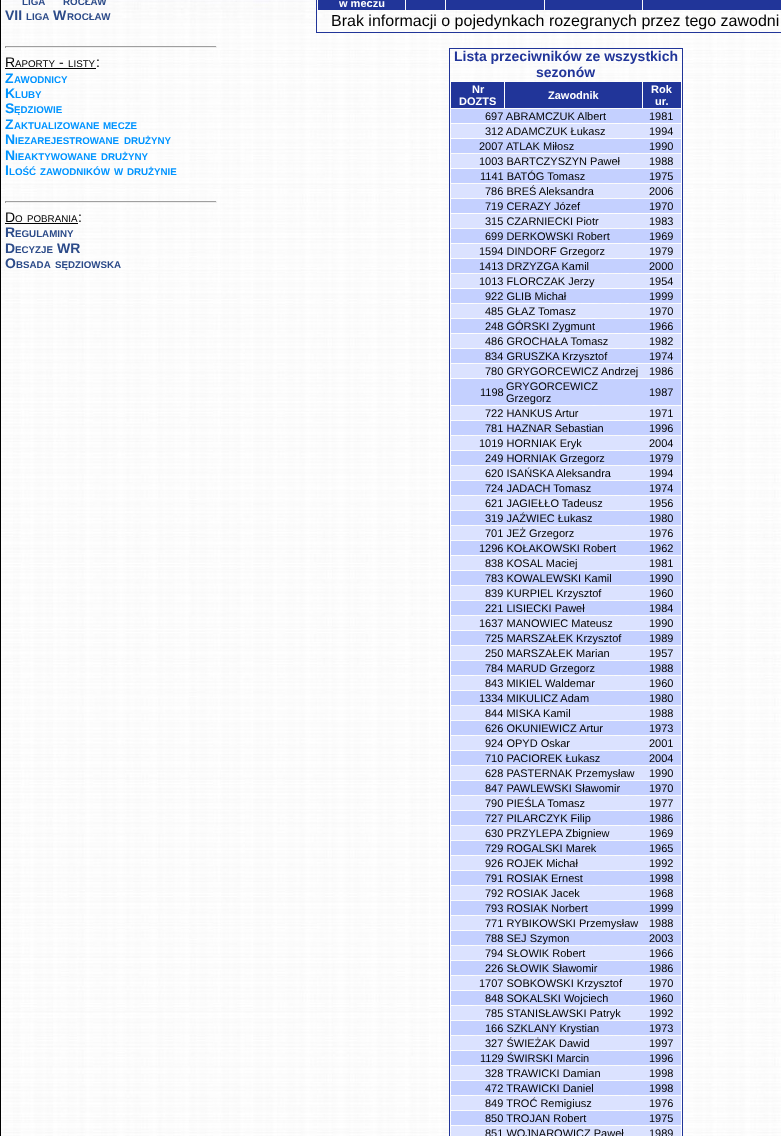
<svg xmlns="http://www.w3.org/2000/svg" width="781" height="1136" viewBox="0 0 781 1136">
  <rect width="100%" height="100%" fill="rgb(255,255,255)"/>
  <image x="1" y="0" width="780" height="1136" href="pic1.png"/>
  <rect x="0.5" y="-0.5" width="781" height="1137" fill="none" stroke="rgb(0,0,0)"/>
  <g font-family="Liberation Sans" font-size="9.75" font-weight="bold" fill="rgb(44,75,137)">
    <text x="22" y="5">LIGA</text>
    <text x="63" y="5">ROCŁAW</text>
  </g>
  <text x="5" y="20" font-family="Liberation Sans" font-size="14" font-weight="bold" fill="rgb(44,75,137)">VII</text>
  <text x="26" y="20" font-family="Liberation Sans" font-size="9.75" font-weight="bold" fill="rgb(44,75,137)">LIGA</text>
  <text x="53" y="20" font-family="Liberation Sans" font-size="14" font-weight="bold" fill="rgb(44,75,137)">W</text>
  <text x="67" y="20" font-family="Liberation Sans" font-size="9.75" font-weight="bold" fill="rgb(44,75,137)">ROCŁAW</text>
  <rect x="5" y="46" width="212" height="1" fill="rgb(159,159,159)"/>
  <rect x="216" y="46" width="1" height="2" fill="rgb(238,238,238)"/>
  <rect x="5" y="47" width="212" height="1" fill="rgb(238,238,238)"/>
  <rect x="5" y="46" width="1" height="2" fill="rgb(159,159,159)"/>
  <text x="5" y="67" font-family="Liberation Sans" font-size="14" fill="rgb(0,0,0)">R</text>
  <text x="15" y="67" font-family="Liberation Sans" font-size="9.75" fill="rgb(0,0,0)">APORTY</text>
  <rect x="5" y="68" width="91" height="1" fill="rgb(0,0,0)"/>
  <text x="59" y="67" font-family="Liberation Sans" font-size="14" fill="rgb(0,0,0)">-</text>
  <text x="68" y="67" font-family="Liberation Sans" font-size="9.75" fill="rgb(0,0,0)">LISTY</text>
  <text x="96" y="67" font-family="Liberation Sans" font-size="14" fill="rgb(0,0,0)">:</text>
  <text x="5" y="83" font-family="Liberation Sans" font-size="14" font-weight="bold" fill="rgb(0,148,255)">Z</text>
  <text x="14" y="83" font-family="Liberation Sans" font-size="9.75" font-weight="bold" fill="rgb(0,148,255)">AWODNICY</text>
  <text x="5" y="98" font-family="Liberation Sans" font-size="14" font-weight="bold" fill="rgb(0,148,255)">K</text>
  <text x="15" y="98" font-family="Liberation Sans" font-size="9.75" font-weight="bold" fill="rgb(0,148,255)">LUBY</text>
  <text x="5" y="113" font-family="Liberation Sans" font-size="14" font-weight="bold" fill="rgb(0,148,255)">S</text>
  <text x="14" y="113" font-family="Liberation Sans" font-size="9.75" font-weight="bold" fill="rgb(0,148,255)">ĘDZIOWIE</text>
  <text x="5" y="129" font-family="Liberation Sans" font-size="14" font-weight="bold" fill="rgb(0,148,255)">Z</text>
  <g font-family="Liberation Sans" font-size="9.75" font-weight="bold" fill="rgb(0,148,255)">
    <text x="14" y="129">AKTUALIZOWANE</text>
    <text x="103" y="129">MECZE</text>
  </g>
  <text x="5" y="144" font-family="Liberation Sans" font-size="14" font-weight="bold" fill="rgb(0,148,255)">N</text>
  <g font-family="Liberation Sans" font-size="9.75" font-weight="bold" fill="rgb(0,148,255)">
    <text x="15" y="144">IEZAREJESTROWANE</text>
    <text x="124" y="144">DRUŻYNY</text>
  </g>
  <text x="5" y="160" font-family="Liberation Sans" font-size="14" font-weight="bold" fill="rgb(0,148,255)">N</text>
  <g font-family="Liberation Sans" font-size="9.75" font-weight="bold" fill="rgb(0,148,255)">
    <text x="15" y="160">IEAKTYWOWANE</text>
    <text x="101" y="160">DRUŻYNY</text>
  </g>
  <text x="5" y="175" font-family="Liberation Sans" font-size="14" font-weight="bold" fill="rgb(0,148,255)">I</text>
  <g font-family="Liberation Sans" font-size="9.75" font-weight="bold" fill="rgb(0,148,255)">
    <text x="9" y="175">LOŚĆ</text>
    <text x="40" y="175">ZAWODNIKÓW</text>
    <text x="114" y="175">W</text>
    <text x="127" y="175">DRUŻYNIE</text>
  </g>
  <rect x="5" y="201" width="212" height="1" fill="rgb(159,159,159)"/>
  <rect x="216" y="201" width="1" height="2" fill="rgb(238,238,238)"/>
  <rect x="5" y="202" width="212" height="1" fill="rgb(238,238,238)"/>
  <rect x="5" y="201" width="1" height="2" fill="rgb(159,159,159)"/>
  <text x="5" y="222" font-family="Liberation Sans" font-size="14" fill="rgb(0,0,0)">D</text>
  <text x="15" y="222" font-family="Liberation Sans" font-size="9.75" fill="rgb(0,0,0)">O</text>
  <rect x="5" y="223" width="73" height="1" fill="rgb(0,0,0)"/>
  <text x="27" y="222" font-family="Liberation Sans" font-size="9.75" fill="rgb(0,0,0)">POBRANIA</text>
  <text x="78" y="222" font-family="Liberation Sans" font-size="14" fill="rgb(0,0,0)">:</text>
  <text x="5" y="237" font-family="Liberation Sans" font-size="14" font-weight="bold" fill="rgb(44,75,137)">R</text>
  <text x="15" y="237" font-family="Liberation Sans" font-size="9.75" font-weight="bold" fill="rgb(44,75,137)">EGULAMINY</text>
  <text x="5" y="253" font-family="Liberation Sans" font-size="14" font-weight="bold" fill="rgb(44,75,137)">D</text>
  <text x="15" y="253" font-family="Liberation Sans" font-size="9.75" font-weight="bold" fill="rgb(44,75,137)">ECYZJE</text>
  <g font-family="Liberation Sans" font-size="14" font-weight="bold" fill="rgb(44,75,137)">
    <text x="57" y="253">WR</text>
    <text x="5" y="268">O</text>
  </g>
  <g font-family="Liberation Sans" font-size="9.75" font-weight="bold" fill="rgb(44,75,137)">
    <text x="16" y="268">BSADA</text>
    <text x="55" y="268">SĘDZIOWSKA</text>
  </g>
  <rect x="316.5" y="-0.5" width="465" height="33" fill="none" stroke="rgb(33,53,153)"/>
  <rect x="318" y="0" width="87" height="10" fill="rgb(33,53,153)"/>
  <text x="339" y="7" font-family="Liberation Sans" font-size="11" font-weight="bold" fill="rgb(255,255,255)">w meczu</text>
  <rect x="406" y="0" width="39" height="10" fill="rgb(33,53,153)"/>
  <rect x="446" y="0" width="98" height="10" fill="rgb(33,53,153)"/>
  <rect x="545" y="0" width="97" height="10" fill="rgb(33,53,153)"/>
  <rect x="643" y="0" width="138" height="10" fill="rgb(33,53,153)"/>
  <text x="331" y="26" font-family="Liberation Sans" font-size="16" fill="rgb(0,0,0)">Brak informacji o pojedynkach rozegranych przez tego zawodni</text>
  <rect x="449.5" y="48.5" width="233" height="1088" fill="none" stroke="rgb(33,53,153)"/>
  <g font-family="Liberation Sans" font-size="14" font-weight="bold" fill="rgb(33,53,153)">
    <text x="454" y="61">Lista przeciwników ze wszystkich</text>
    <text x="536" y="77">sezonów</text>
  </g>
  <rect x="451" y="82" width="53" height="26" fill="rgb(33,53,153)"/>
  <g font-family="Liberation Sans" font-size="11" font-weight="bold" fill="rgb(255,255,255)">
    <text x="472" y="93">Nr</text>
    <text x="459" y="105">DOZTS</text>
  </g>
  <rect x="505" y="82" width="137" height="26" fill="rgb(33,53,153)"/>
  <text x="548" y="99" font-family="Liberation Sans" font-size="11" font-weight="bold" fill="rgb(255,255,255)">Zawodnik</text>
  <rect x="643" y="82" width="38" height="26" fill="rgb(33,53,153)"/>
  <g font-family="Liberation Sans" font-size="11" font-weight="bold" fill="rgb(255,255,255)">
    <text x="651" y="93">Rok</text>
    <text x="655" y="105">ur.</text>
  </g>
  <rect x="451" y="109" width="230" height="14" fill="rgb(196,208,255)"/>
  <g font-family="Liberation Sans" font-size="11" fill="rgb(0,0,0)">
    <text x="485" y="120">697 ABRAMCZUK Albert</text>
    <text x="649" y="120">1981</text>
  </g>
  <rect x="451" y="124" width="230" height="14" fill="rgb(219,226,255)"/>
  <g font-family="Liberation Sans" font-size="11" fill="rgb(0,0,0)">
    <text x="485" y="135">312 ADAMCZUK Łukasz</text>
    <text x="649" y="135">1994</text>
  </g>
  <rect x="451" y="139" width="230" height="14" fill="rgb(196,208,255)"/>
  <g font-family="Liberation Sans" font-size="11" fill="rgb(0,0,0)">
    <text x="479" y="150">2007 ATLAK Miłosz</text>
    <text x="649" y="150">1990</text>
  </g>
  <rect x="451" y="154" width="230" height="14" fill="rgb(219,226,255)"/>
  <g font-family="Liberation Sans" font-size="11" fill="rgb(0,0,0)">
    <text x="479" y="165">1003 BARTCZYSZYN Paweł</text>
    <text x="649" y="165">1988</text>
  </g>
  <rect x="451" y="169" width="230" height="14" fill="rgb(196,208,255)"/>
  <g font-family="Liberation Sans" font-size="11" fill="rgb(0,0,0)">
    <text x="480" y="180">1141 BATÓG Tomasz</text>
    <text x="649" y="180">1975</text>
  </g>
  <rect x="451" y="184" width="230" height="14" fill="rgb(219,226,255)"/>
  <g font-family="Liberation Sans" font-size="11" fill="rgb(0,0,0)">
    <text x="485" y="195">786 BREŚ Aleksandra</text>
    <text x="649" y="195">2006</text>
  </g>
  <rect x="451" y="199" width="230" height="14" fill="rgb(196,208,255)"/>
  <g font-family="Liberation Sans" font-size="11" fill="rgb(0,0,0)">
    <text x="485" y="210">719 CERAZY Józef</text>
    <text x="649" y="210">1970</text>
  </g>
  <rect x="451" y="214" width="230" height="14" fill="rgb(219,226,255)"/>
  <g font-family="Liberation Sans" font-size="11" fill="rgb(0,0,0)">
    <text x="485" y="225">315 CZARNIECKI Piotr</text>
    <text x="649" y="225">1983</text>
  </g>
  <rect x="451" y="229" width="230" height="14" fill="rgb(196,208,255)"/>
  <g font-family="Liberation Sans" font-size="11" fill="rgb(0,0,0)">
    <text x="485" y="240">699 DERKOWSKI Robert</text>
    <text x="649" y="240">1969</text>
  </g>
  <rect x="451" y="244" width="230" height="14" fill="rgb(219,226,255)"/>
  <g font-family="Liberation Sans" font-size="11" fill="rgb(0,0,0)">
    <text x="479" y="255">1594 DINDORF Grzegorz</text>
    <text x="649" y="255">1979</text>
  </g>
  <rect x="451" y="259" width="230" height="14" fill="rgb(196,208,255)"/>
  <g font-family="Liberation Sans" font-size="11" fill="rgb(0,0,0)">
    <text x="479" y="270">1413 DRZYZGA Kamil</text>
    <text x="649" y="270">2000</text>
  </g>
  <rect x="451" y="274" width="230" height="14" fill="rgb(219,226,255)"/>
  <g font-family="Liberation Sans" font-size="11" fill="rgb(0,0,0)">
    <text x="479" y="285">1013 FLORCZAK Jerzy</text>
    <text x="649" y="285">1954</text>
  </g>
  <rect x="451" y="289" width="230" height="14" fill="rgb(196,208,255)"/>
  <g font-family="Liberation Sans" font-size="11" fill="rgb(0,0,0)">
    <text x="485" y="300">922 GLIB Michał</text>
    <text x="649" y="300">1999</text>
  </g>
  <rect x="451" y="304" width="230" height="14" fill="rgb(219,226,255)"/>
  <g font-family="Liberation Sans" font-size="11" fill="rgb(0,0,0)">
    <text x="485" y="315">485 GŁAZ Tomasz</text>
    <text x="649" y="315">1970</text>
  </g>
  <rect x="451" y="319" width="230" height="14" fill="rgb(196,208,255)"/>
  <g font-family="Liberation Sans" font-size="11" fill="rgb(0,0,0)">
    <text x="485" y="330">248 GÓRSKI Zygmunt</text>
    <text x="649" y="330">1966</text>
  </g>
  <rect x="451" y="334" width="230" height="14" fill="rgb(219,226,255)"/>
  <g font-family="Liberation Sans" font-size="11" fill="rgb(0,0,0)">
    <text x="485" y="345">486 GROCHAŁA Tomasz</text>
    <text x="649" y="345">1982</text>
  </g>
  <rect x="451" y="349" width="230" height="14" fill="rgb(196,208,255)"/>
  <g font-family="Liberation Sans" font-size="11" fill="rgb(0,0,0)">
    <text x="485" y="360">834 GRUSZKA Krzysztof</text>
    <text x="649" y="360">1974</text>
  </g>
  <rect x="451" y="364" width="230" height="14" fill="rgb(219,226,255)"/>
  <g font-family="Liberation Sans" font-size="11" fill="rgb(0,0,0)">
    <text x="485" y="375">780 GRYGORCEWICZ Andrzej</text>
    <text x="649" y="375">1986</text>
  </g>
  <rect x="451" y="379" width="230" height="26" fill="rgb(196,208,255)"/>
  <g font-family="Liberation Sans" font-size="11" fill="rgb(0,0,0)">
    <text x="480" y="396">1198</text>
    <text>
      <tspan x="506" y="390">GRYGORCEWICZ</tspan>
      <tspan x="506" y="402">Grzegorz</tspan>
    </text>
    <text x="649" y="396">1987</text>
  </g>
  <rect x="451" y="406" width="230" height="14" fill="rgb(219,226,255)"/>
  <g font-family="Liberation Sans" font-size="11" fill="rgb(0,0,0)">
    <text x="485" y="417">722 HANKUS Artur</text>
    <text x="649" y="417">1971</text>
  </g>
  <rect x="451" y="421" width="230" height="14" fill="rgb(196,208,255)"/>
  <g font-family="Liberation Sans" font-size="11" fill="rgb(0,0,0)">
    <text x="485" y="432">781 HAZNAR Sebastian</text>
    <text x="649" y="432">1996</text>
  </g>
  <rect x="451" y="436" width="230" height="14" fill="rgb(219,226,255)"/>
  <g font-family="Liberation Sans" font-size="11" fill="rgb(0,0,0)">
    <text x="479" y="447">1019 HORNIAK Eryk</text>
    <text x="649" y="447">2004</text>
  </g>
  <rect x="451" y="451" width="230" height="14" fill="rgb(196,208,255)"/>
  <g font-family="Liberation Sans" font-size="11" fill="rgb(0,0,0)">
    <text x="485" y="462">249 HORNIAK Grzegorz</text>
    <text x="649" y="462">1979</text>
  </g>
  <rect x="451" y="466" width="230" height="14" fill="rgb(219,226,255)"/>
  <g font-family="Liberation Sans" font-size="11" fill="rgb(0,0,0)">
    <text x="485" y="477">620 ISAŃSKA Aleksandra</text>
    <text x="649" y="477">1994</text>
  </g>
  <rect x="451" y="481" width="230" height="14" fill="rgb(196,208,255)"/>
  <g font-family="Liberation Sans" font-size="11" fill="rgb(0,0,0)">
    <text x="485" y="492">724 JADACH Tomasz</text>
    <text x="649" y="492">1974</text>
  </g>
  <rect x="451" y="496" width="230" height="14" fill="rgb(219,226,255)"/>
  <g font-family="Liberation Sans" font-size="11" fill="rgb(0,0,0)">
    <text x="485" y="507">621 JAGIEŁŁO Tadeusz</text>
    <text x="649" y="507">1956</text>
  </g>
  <rect x="451" y="511" width="230" height="14" fill="rgb(196,208,255)"/>
  <g font-family="Liberation Sans" font-size="11" fill="rgb(0,0,0)">
    <text x="485" y="522">319 JAŹWIEC Łukasz</text>
    <text x="649" y="522">1980</text>
  </g>
  <rect x="451" y="526" width="230" height="14" fill="rgb(219,226,255)"/>
  <g font-family="Liberation Sans" font-size="11" fill="rgb(0,0,0)">
    <text x="485" y="537">701 JEŻ Grzegorz</text>
    <text x="649" y="537">1976</text>
  </g>
  <rect x="451" y="541" width="230" height="14" fill="rgb(196,208,255)"/>
  <g font-family="Liberation Sans" font-size="11" fill="rgb(0,0,0)">
    <text x="479" y="552">1296 KOŁAKOWSKI Robert</text>
    <text x="649" y="552">1962</text>
  </g>
  <rect x="451" y="556" width="230" height="14" fill="rgb(219,226,255)"/>
  <g font-family="Liberation Sans" font-size="11" fill="rgb(0,0,0)">
    <text x="485" y="567">838 KOSAL Maciej</text>
    <text x="649" y="567">1981</text>
  </g>
  <rect x="451" y="571" width="230" height="14" fill="rgb(196,208,255)"/>
  <g font-family="Liberation Sans" font-size="11" fill="rgb(0,0,0)">
    <text x="485" y="582">783 KOWALEWSKI Kamil</text>
    <text x="649" y="582">1990</text>
  </g>
  <rect x="451" y="586" width="230" height="14" fill="rgb(219,226,255)"/>
  <g font-family="Liberation Sans" font-size="11" fill="rgb(0,0,0)">
    <text x="485" y="597">839 KURPIEL Krzysztof</text>
    <text x="649" y="597">1960</text>
  </g>
  <rect x="451" y="601" width="230" height="14" fill="rgb(196,208,255)"/>
  <g font-family="Liberation Sans" font-size="11" fill="rgb(0,0,0)">
    <text x="485" y="612">221 LISIECKI Paweł</text>
    <text x="649" y="612">1984</text>
  </g>
  <rect x="451" y="616" width="230" height="14" fill="rgb(219,226,255)"/>
  <g font-family="Liberation Sans" font-size="11" fill="rgb(0,0,0)">
    <text x="479" y="627">1637 MANOWIEC Mateusz</text>
    <text x="649" y="627">1990</text>
  </g>
  <rect x="451" y="631" width="230" height="14" fill="rgb(196,208,255)"/>
  <g font-family="Liberation Sans" font-size="11" fill="rgb(0,0,0)">
    <text x="485" y="642">725 MARSZAŁEK Krzysztof</text>
    <text x="649" y="642">1989</text>
  </g>
  <rect x="451" y="646" width="230" height="14" fill="rgb(219,226,255)"/>
  <g font-family="Liberation Sans" font-size="11" fill="rgb(0,0,0)">
    <text x="485" y="657">250 MARSZAŁEK Marian</text>
    <text x="649" y="657">1957</text>
  </g>
  <rect x="451" y="661" width="230" height="14" fill="rgb(196,208,255)"/>
  <g font-family="Liberation Sans" font-size="11" fill="rgb(0,0,0)">
    <text x="485" y="672">784 MARUD Grzegorz</text>
    <text x="649" y="672">1988</text>
  </g>
  <rect x="451" y="676" width="230" height="14" fill="rgb(219,226,255)"/>
  <g font-family="Liberation Sans" font-size="11" fill="rgb(0,0,0)">
    <text x="485" y="687">843 MIKIEL Waldemar</text>
    <text x="649" y="687">1960</text>
  </g>
  <rect x="451" y="691" width="230" height="14" fill="rgb(196,208,255)"/>
  <g font-family="Liberation Sans" font-size="11" fill="rgb(0,0,0)">
    <text x="479" y="702">1334 MIKULICZ Adam</text>
    <text x="649" y="702">1980</text>
  </g>
  <rect x="451" y="706" width="230" height="14" fill="rgb(219,226,255)"/>
  <g font-family="Liberation Sans" font-size="11" fill="rgb(0,0,0)">
    <text x="485" y="717">844 MISKA Kamil</text>
    <text x="649" y="717">1988</text>
  </g>
  <rect x="451" y="721" width="230" height="14" fill="rgb(196,208,255)"/>
  <g font-family="Liberation Sans" font-size="11" fill="rgb(0,0,0)">
    <text x="485" y="732">626 OKUNIEWICZ Artur</text>
    <text x="649" y="732">1973</text>
  </g>
  <rect x="451" y="736" width="230" height="14" fill="rgb(219,226,255)"/>
  <g font-family="Liberation Sans" font-size="11" fill="rgb(0,0,0)">
    <text x="485" y="747">924 OPYD Oskar</text>
    <text x="649" y="747">2001</text>
  </g>
  <rect x="451" y="751" width="230" height="14" fill="rgb(196,208,255)"/>
  <g font-family="Liberation Sans" font-size="11" fill="rgb(0,0,0)">
    <text x="485" y="762">710 PACIOREK Łukasz</text>
    <text x="649" y="762">2004</text>
  </g>
  <rect x="451" y="766" width="230" height="14" fill="rgb(219,226,255)"/>
  <g font-family="Liberation Sans" font-size="11" fill="rgb(0,0,0)">
    <text x="485" y="777">628 PASTERNAK Przemysław</text>
    <text x="649" y="777">1990</text>
  </g>
  <rect x="451" y="781" width="230" height="14" fill="rgb(196,208,255)"/>
  <g font-family="Liberation Sans" font-size="11" fill="rgb(0,0,0)">
    <text x="485" y="792">847 PAWLEWSKI Sławomir</text>
    <text x="649" y="792">1970</text>
  </g>
  <rect x="451" y="796" width="230" height="14" fill="rgb(219,226,255)"/>
  <g font-family="Liberation Sans" font-size="11" fill="rgb(0,0,0)">
    <text x="485" y="807">790 PIEŚLA Tomasz</text>
    <text x="649" y="807">1977</text>
  </g>
  <rect x="451" y="811" width="230" height="14" fill="rgb(196,208,255)"/>
  <g font-family="Liberation Sans" font-size="11" fill="rgb(0,0,0)">
    <text x="485" y="822">727 PILARCZYK Filip</text>
    <text x="649" y="822">1986</text>
  </g>
  <rect x="451" y="826" width="230" height="14" fill="rgb(219,226,255)"/>
  <g font-family="Liberation Sans" font-size="11" fill="rgb(0,0,0)">
    <text x="485" y="837">630 PRZYLEPA Zbigniew</text>
    <text x="649" y="837">1969</text>
  </g>
  <rect x="451" y="841" width="230" height="14" fill="rgb(196,208,255)"/>
  <g font-family="Liberation Sans" font-size="11" fill="rgb(0,0,0)">
    <text x="485" y="852">729 ROGALSKI Marek</text>
    <text x="649" y="852">1965</text>
  </g>
  <rect x="451" y="856" width="230" height="14" fill="rgb(219,226,255)"/>
  <g font-family="Liberation Sans" font-size="11" fill="rgb(0,0,0)">
    <text x="485" y="867">926 ROJEK Michał</text>
    <text x="649" y="867">1992</text>
  </g>
  <rect x="451" y="871" width="230" height="14" fill="rgb(196,208,255)"/>
  <g font-family="Liberation Sans" font-size="11" fill="rgb(0,0,0)">
    <text x="485" y="882">791 ROSIAK Ernest</text>
    <text x="649" y="882">1998</text>
  </g>
  <rect x="451" y="886" width="230" height="14" fill="rgb(219,226,255)"/>
  <g font-family="Liberation Sans" font-size="11" fill="rgb(0,0,0)">
    <text x="485" y="897">792 ROSIAK Jacek</text>
    <text x="649" y="897">1968</text>
  </g>
  <rect x="451" y="901" width="230" height="14" fill="rgb(196,208,255)"/>
  <g font-family="Liberation Sans" font-size="11" fill="rgb(0,0,0)">
    <text x="485" y="912">793 ROSIAK Norbert</text>
    <text x="649" y="912">1999</text>
  </g>
  <rect x="451" y="916" width="230" height="14" fill="rgb(219,226,255)"/>
  <g font-family="Liberation Sans" font-size="11" fill="rgb(0,0,0)">
    <text x="485" y="927">771 RYBIKOWSKI Przemysław</text>
    <text x="649" y="927">1988</text>
  </g>
  <rect x="451" y="931" width="230" height="14" fill="rgb(196,208,255)"/>
  <g font-family="Liberation Sans" font-size="11" fill="rgb(0,0,0)">
    <text x="485" y="942">788 SEJ Szymon</text>
    <text x="649" y="942">2003</text>
  </g>
  <rect x="451" y="946" width="230" height="14" fill="rgb(219,226,255)"/>
  <g font-family="Liberation Sans" font-size="11" fill="rgb(0,0,0)">
    <text x="485" y="957">794 SŁOWIK Robert</text>
    <text x="649" y="957">1966</text>
  </g>
  <rect x="451" y="961" width="230" height="14" fill="rgb(196,208,255)"/>
  <g font-family="Liberation Sans" font-size="11" fill="rgb(0,0,0)">
    <text x="485" y="972">226 SŁOWIK Sławomir</text>
    <text x="649" y="972">1986</text>
  </g>
  <rect x="451" y="976" width="230" height="14" fill="rgb(219,226,255)"/>
  <g font-family="Liberation Sans" font-size="11" fill="rgb(0,0,0)">
    <text x="479" y="987">1707 SOBKOWSKI Krzysztof</text>
    <text x="649" y="987">1970</text>
  </g>
  <rect x="451" y="991" width="230" height="14" fill="rgb(196,208,255)"/>
  <g font-family="Liberation Sans" font-size="11" fill="rgb(0,0,0)">
    <text x="485" y="1002">848 SOKALSKI Wojciech</text>
    <text x="649" y="1002">1960</text>
  </g>
  <rect x="451" y="1006" width="230" height="14" fill="rgb(219,226,255)"/>
  <g font-family="Liberation Sans" font-size="11" fill="rgb(0,0,0)">
    <text x="485" y="1017">785 STANISŁAWSKI Patryk</text>
    <text x="649" y="1017">1992</text>
  </g>
  <rect x="451" y="1021" width="230" height="14" fill="rgb(196,208,255)"/>
  <g font-family="Liberation Sans" font-size="11" fill="rgb(0,0,0)">
    <text x="485" y="1032">166 SZKLANY Krystian</text>
    <text x="649" y="1032">1973</text>
  </g>
  <rect x="451" y="1036" width="230" height="14" fill="rgb(219,226,255)"/>
  <g font-family="Liberation Sans" font-size="11" fill="rgb(0,0,0)">
    <text x="485" y="1047">327 ŚWIEŻAK Dawid</text>
    <text x="649" y="1047">1997</text>
  </g>
  <rect x="451" y="1051" width="230" height="14" fill="rgb(196,208,255)"/>
  <g font-family="Liberation Sans" font-size="11" fill="rgb(0,0,0)">
    <text x="480" y="1062">1129 ŚWIRSKI Marcin</text>
    <text x="649" y="1062">1996</text>
  </g>
  <rect x="451" y="1066" width="230" height="14" fill="rgb(219,226,255)"/>
  <g font-family="Liberation Sans" font-size="11" fill="rgb(0,0,0)">
    <text x="485" y="1077">328 TRAWICKI Damian</text>
    <text x="649" y="1077">1998</text>
  </g>
  <rect x="451" y="1081" width="230" height="14" fill="rgb(196,208,255)"/>
  <g font-family="Liberation Sans" font-size="11" fill="rgb(0,0,0)">
    <text x="485" y="1092">472 TRAWICKI Daniel</text>
    <text x="649" y="1092">1998</text>
  </g>
  <rect x="451" y="1096" width="230" height="14" fill="rgb(219,226,255)"/>
  <g font-family="Liberation Sans" font-size="11" fill="rgb(0,0,0)">
    <text x="485" y="1107">849 TROĆ Remigiusz</text>
    <text x="649" y="1107">1976</text>
  </g>
  <rect x="451" y="1111" width="230" height="14" fill="rgb(196,208,255)"/>
  <g font-family="Liberation Sans" font-size="11" fill="rgb(0,0,0)">
    <text x="485" y="1122">850 TROJAN Robert</text>
    <text x="649" y="1122">1975</text>
  </g>
  <rect x="451" y="1126" width="230" height="10" fill="rgb(219,226,255)"/>
  <g font-family="Liberation Sans" font-size="11" fill="rgb(0,0,0)">
    <text x="485" y="1137">851 WOJNAROWICZ Paweł</text>
    <text x="649" y="1137">1989</text>
  </g>
</svg>
